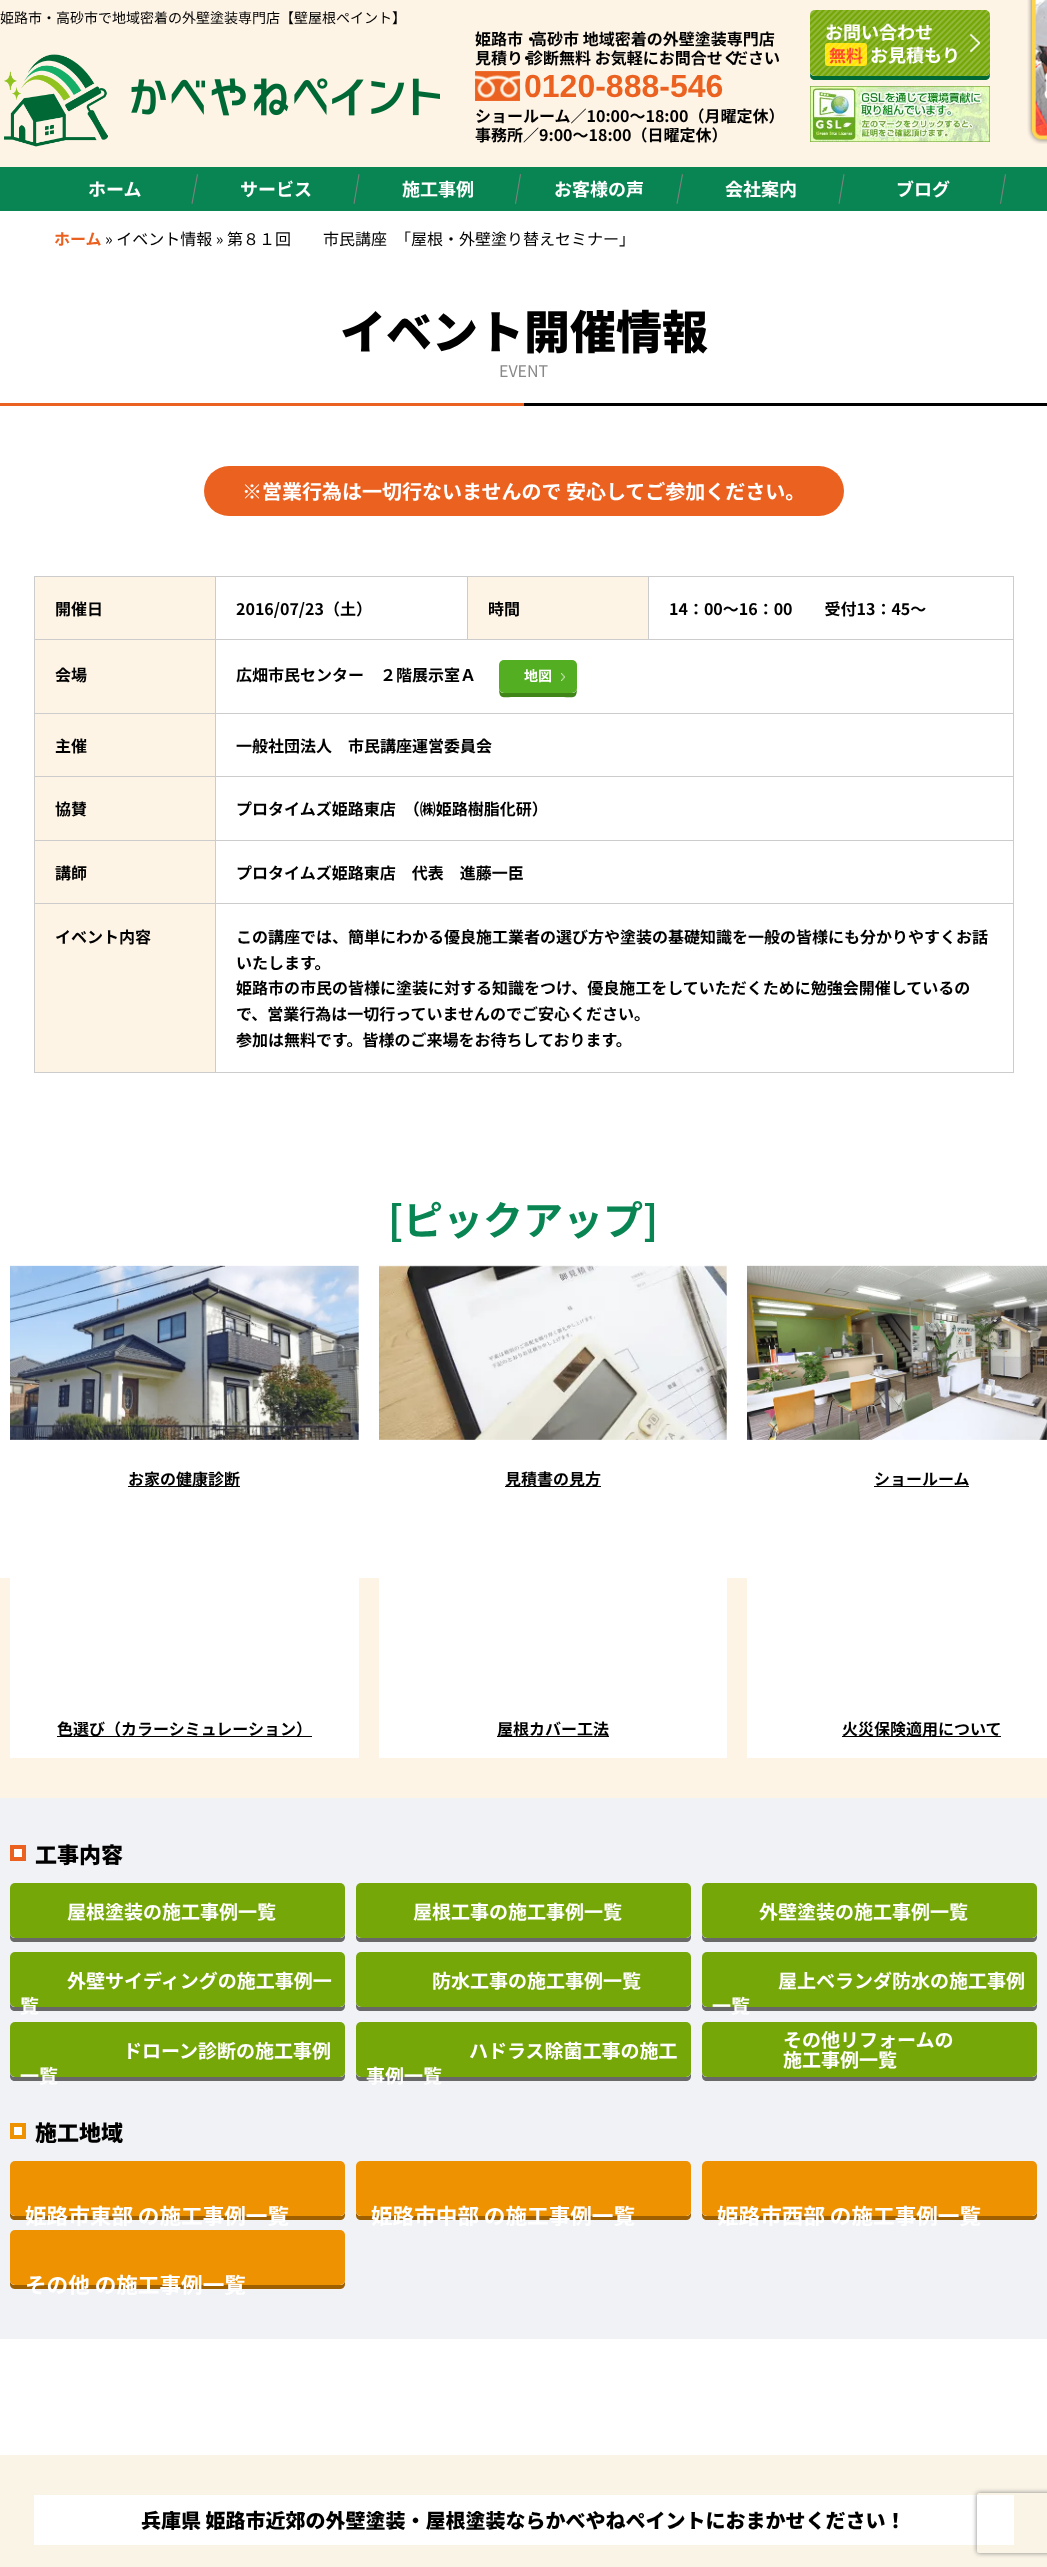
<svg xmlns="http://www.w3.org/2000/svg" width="1047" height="2567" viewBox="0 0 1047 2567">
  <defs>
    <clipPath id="clip1"><path d="M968 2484H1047V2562H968ZM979 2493H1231C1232 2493 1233 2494 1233 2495V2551C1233 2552 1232 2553 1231 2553H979C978 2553 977 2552 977 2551V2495C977 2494 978 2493 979 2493Z" clip-rule="evenodd"/></clipPath>
  </defs>
  <rect width="100%" height="100%" fill="rgb(255,255,255)"/>
  <rect x="0" y="0" width="1047" height="167" fill="rgb(253,244,230)"/>
  <text x="0" y="23" font-family="Noto Sans JP" font-size="14" fill="rgb(0,0,0)">姫路市・高砂市で地域密着の外壁塗装専門店【壁屋根ペイント】</text>
  <image x="4" y="54" width="104" height="93" href="pic1.png"/>
  <image x="131" y="78" width="309" height="38" href="pic2.png"/>
  <g font-family="Noto Sans JP" font-size="16" font-weight="bold" fill="rgb(0,0,0)">
    <text x="475" y="45">姫路市・</text>
    <text x="531" y="45">高砂市 地域密着の外壁塗装専門店</text>
    <text x="475" y="64">見積り</text>
    <text x="519" y="64">・</text>
    <text x="527" y="64">診断無料 お気軽にお問合せく</text>
    <text x="732" y="64">ださい</text>
  </g>
  <image x="475" y="71" width="45" height="30" href="pic3.png"/>
  <text x="524" y="97" font-family="Liberation Sans" font-size="32" font-weight="bold" fill="rgb(235,97,32)">0120-888-546</text>
  <g font-family="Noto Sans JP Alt" font-size="16" font-weight="bold" fill="rgb(0,0,0)">
    <text>
      <tspan x="475" y="122">ショールーム／10:00～18:00（月曜定休）</tspan>
      <tspan x="475" y="141">事務所／9:00～18:00（日曜定休）</tspan>
    </text>
  </g>
  <path d="M810 71V75C810 78 812 80 815 80H985C988 80 990 78 990 75V71C990 74 988 76 985 76H815C812 76 810 74 810 71Z" fill="rgb(0,104,53)"/>
  <rect x="810" y="10" width="180" height="66" rx="5" fill="rgb(118,167,9)"/>
  <text x="825" y="39" font-family="Noto Sans JP" font-size="18" font-weight="bold" fill="rgb(255,255,255)">お問い合わせ</text>
  <rect x="825" y="43" width="42" height="23" rx="3" fill="rgb(255,227,0)"/>
  <text x="829" y="62" font-family="Noto Sans JP" font-size="17" font-weight="bold" fill="rgb(255,65,25)">無料</text>
  <text x="870" y="62" font-family="Noto Sans JP" font-size="18" font-weight="bold" fill="rgb(255,255,255)">お見積もり</text>
  <image x="810" y="10" width="180" height="66" href="pic4.png"/>
  <image x="970" y="34" width="10" height="18" href="pic5.png"/>
  <image x="810" y="86" width="180" height="56" href="pic6.png"/>
  <image x="1027" y="0" width="20" height="144" href="pic7.png"/>
  <rect x="0" y="167" width="1047" height="44" fill="rgb(9,133,83)"/>
  <text x="88" y="196" font-family="Noto Sans JP" font-size="18" font-weight="bold" fill="rgb(255,255,255)">ホーム</text>
  <path d="M197 174L198 174.5L192.5 204L191.5 203.5Z" fill="rgb(128,128,128)"/>
  <text x="240" y="196" font-family="Noto Sans JP" font-size="18" font-weight="bold" fill="rgb(255,255,255)">サービス</text>
  <path d="M358.5 174L359.5 174.5L354.5 204L353.5 203.5Z" fill="rgb(128,128,128)"/>
  <text x="402" y="196" font-family="Noto Sans JP" font-size="18" font-weight="bold" fill="rgb(255,255,255)">施工事例</text>
  <path d="M520 174L521 174.5L516 204L515 203.5Z" fill="rgb(128,128,128)"/>
  <text x="554" y="196" font-family="Noto Sans JP" font-size="18" font-weight="bold" fill="rgb(255,255,255)">お客様の声</text>
  <path d="M682 174L683 174.5L677.5 204L676.5 203.5Z" fill="rgb(128,128,128)"/>
  <text x="725" y="196" font-family="Noto Sans JP" font-size="18" font-weight="bold" fill="rgb(255,255,255)">会社案内</text>
  <path d="M843.5 174L844.5 174.5L839.5 204L838.5 203.5Z" fill="rgb(128,128,128)"/>
  <text x="896" y="196" font-family="Noto Sans JP" font-size="18" font-weight="bold" fill="rgb(255,255,255)">ブログ</text>
  <path d="M1005 174L1006 174.5L1001 204L1000 203.5Z" fill="rgb(128,128,128)"/>
  <text x="54" y="245" font-family="Noto Sans JP" font-size="16" font-weight="bold" fill="rgb(235,97,32)">ホーム</text>
  <text x="105" y="245" font-family="Noto Sans JP" font-size="16" fill="rgb(0,0,0)">» イベント情報 » 第８１回　　市民講座　「屋根・外壁塗り替えセミナー」</text>
  <text x="340" y="349" font-family="Noto Sans JP" font-size="46" font-weight="900" fill="rgb(0,0,0)">イベント開催情報</text>
  <rect x="524" y="403" width="523" height="3" fill="rgb(0,0,0)"/>
  <text x="499" y="377" font-family="Noto Sans JP" font-size="16" fill="rgb(136,136,136)">EVENT</text>
  <rect x="0" y="403" width="524" height="3" fill="rgb(235,97,32)"/>
  <rect x="204" y="466" width="640" height="50" rx="25" fill="rgb(235,97,32)"/>
  <text x="242" y="499" font-family="Noto Sans JP" font-size="20" font-weight="bold" fill="rgb(255,255,255)">※営業行為は一切行ないませんので 安心してご参加ください。</text>
  <rect x="35" y="577" width="180" height="62" fill="rgb(253,244,230)"/>
  <rect x="648" y="576" width="366" height="1" fill="rgb(204,204,204)"/>
  <rect x="215" y="639" width="799" height="1" fill="rgb(204,204,204)"/>
  <rect x="648" y="576" width="1" height="64" fill="rgb(204,204,204)"/>
  <rect x="467" y="576" width="182" height="1" fill="rgb(204,204,204)"/>
  <rect x="467" y="576" width="1" height="64" fill="rgb(204,204,204)"/>
  <rect x="215" y="576" width="253" height="1" fill="rgb(204,204,204)"/>
  <rect x="215" y="713" width="799" height="1" fill="rgb(204,204,204)"/>
  <rect x="215" y="776" width="799" height="1" fill="rgb(204,204,204)"/>
  <rect x="215" y="840" width="799" height="1" fill="rgb(204,204,204)"/>
  <rect x="215" y="903" width="799" height="1" fill="rgb(204,204,204)"/>
  <rect x="1013" y="903" width="1" height="170" fill="rgb(204,204,204)"/>
  <rect x="215" y="1072" width="799" height="1" fill="rgb(204,204,204)"/>
  <rect x="215" y="903" width="1" height="170" fill="rgb(204,204,204)"/>
  <rect x="34" y="903" width="182" height="1" fill="rgb(204,204,204)"/>
  <rect x="215" y="840" width="1" height="64" fill="rgb(204,204,204)"/>
  <rect x="34" y="840" width="182" height="1" fill="rgb(204,204,204)"/>
  <rect x="215" y="776" width="1" height="65" fill="rgb(204,204,204)"/>
  <rect x="34" y="776" width="182" height="1" fill="rgb(204,204,204)"/>
  <rect x="215" y="713" width="1" height="64" fill="rgb(204,204,204)"/>
  <rect x="34" y="713" width="182" height="1" fill="rgb(204,204,204)"/>
  <rect x="215" y="639" width="1" height="75" fill="rgb(204,204,204)"/>
  <rect x="34" y="639" width="182" height="1" fill="rgb(204,204,204)"/>
  <rect x="215" y="576" width="1" height="64" fill="rgb(204,204,204)"/>
  <rect x="34" y="576" width="182" height="1" fill="rgb(204,204,204)"/>
  <rect x="34" y="1072" width="182" height="1" fill="rgb(204,204,204)"/>
  <rect x="34" y="903" width="1" height="170" fill="rgb(204,204,204)"/>
  <rect x="34" y="840" width="1" height="64" fill="rgb(204,204,204)"/>
  <rect x="34" y="776" width="1" height="65" fill="rgb(204,204,204)"/>
  <rect x="34" y="713" width="1" height="64" fill="rgb(204,204,204)"/>
  <rect x="34" y="639" width="1" height="75" fill="rgb(204,204,204)"/>
  <rect x="34" y="576" width="1" height="64" fill="rgb(204,204,204)"/>
  <g font-family="Noto Sans JP" font-size="16" font-weight="bold" fill="rgb(0,0,0)">
    <text x="55" y="615">開催日</text>
    <text x="236" y="615">2016/07/23（土）</text>
  </g>
  <rect x="468" y="577" width="180" height="62" fill="rgb(253,244,230)"/>
  <text x="488" y="615" font-family="Noto Sans JP" font-size="16" font-weight="bold" fill="rgb(0,0,0)">時間</text>
  <rect x="1013" y="840" width="1" height="64" fill="rgb(204,204,204)"/>
  <rect x="1013" y="776" width="1" height="65" fill="rgb(204,204,204)"/>
  <rect x="1013" y="713" width="1" height="64" fill="rgb(204,204,204)"/>
  <rect x="1013" y="639" width="1" height="75" fill="rgb(204,204,204)"/>
  <rect x="1013" y="576" width="1" height="64" fill="rgb(204,204,204)"/>
  <text x="669" y="615" font-family="Noto Sans JP" font-size="16" font-weight="bold" fill="rgb(0,0,0)">14：00～16：00　　受付13：45～</text>
  <rect x="35" y="640" width="180" height="73" fill="rgb(253,244,230)"/>
  <g font-family="Noto Sans JP" font-size="16" font-weight="bold" fill="rgb(0,0,0)">
    <text x="55" y="681">会場</text>
    <text x="236" y="681">広畑市民センター　２階展示室Ａ</text>
  </g>
  <path d="M499 688C499 700 503 697 515 697H561C573 697 577 700 577 688C577 691 575 693 572 693H504C501 693 499 691 499 688Z" fill="rgb(63,133,24)"/>
  <rect x="499" y="660" width="78" height="33" rx="5" fill="rgb(83,174,33)"/>
  <text x="524" y="681" font-family="Noto Sans JP" font-size="14" font-weight="bold" fill="rgb(255,255,255)">地図</text>
  <image x="561" y="673" width="4" height="8" href="pic8.png"/>
  <rect x="35" y="714" width="180" height="62" fill="rgb(253,244,230)"/>
  <g font-family="Noto Sans JP" font-size="16" font-weight="bold" fill="rgb(0,0,0)">
    <text x="55" y="752">主催</text>
    <text x="236" y="752">一般社団法人　市民講座運営委員会</text>
  </g>
  <rect x="35" y="777" width="180" height="63" fill="rgb(253,244,230)"/>
  <g font-family="Noto Sans JP" font-size="16" font-weight="bold" fill="rgb(0,0,0)">
    <text x="55" y="815">協賛</text>
    <text x="236" y="815">プロタイムズ姫路東店　（㈱姫路樹脂化研）</text>
  </g>
  <rect x="35" y="841" width="180" height="62" fill="rgb(253,244,230)"/>
  <g font-family="Noto Sans JP" font-size="16" font-weight="bold" fill="rgb(0,0,0)">
    <text x="55" y="879">講師</text>
    <text x="236" y="879">プロタイムズ姫路東店　代表　進藤一臣</text>
  </g>
  <rect x="35" y="904" width="180" height="168" fill="rgb(253,244,230)"/>
  <g font-family="Noto Sans JP" font-size="16" font-weight="bold" fill="rgb(0,0,0)">
    <text x="55" y="943">イベント内容</text>
    <text>
      <tspan x="236" y="943">この講座では、簡単にわかる優良施工業者の選び方や塗装の基礎知識を一般の皆様にも分かりやすくお話</tspan>
      <tspan x="236" y="969">いたします。</tspan>
      <tspan x="236" y="994">姫路市の市民の皆様に塗装に対する知識をつけ、優良施工をしていただくために勉強会開催しているの</tspan>
      <tspan x="236" y="1020">で、営業行為は一切行っていませんのでご安心ください。</tspan>
      <tspan x="236" y="1046">参加は無料です。皆様のご来場をお待ちしております。</tspan>
    </text>
  </g>
  <text x="388" y="1235" font-family="Noto Sans JP" font-size="40" font-weight="bold" fill="rgb(9,133,83)">[ピックアップ]</text>
  <image x="10" y="1265" width="349" height="175" href="pic9.png"/>
  <rect x="128" y="1486" width="112" height="1" fill="rgb(0,0,0)"/>
  <text x="128" y="1485" font-family="Noto Sans JP" font-size="16" font-weight="bold" fill="rgb(0,0,0)">お家の健康診断</text>
  <image x="379" y="1265" width="348" height="175" href="pic10.png"/>
  <rect x="505" y="1486" width="96" height="1" fill="rgb(0,0,0)"/>
  <text x="505" y="1485" font-family="Noto Sans JP" font-size="16" font-weight="bold" fill="rgb(0,0,0)">見積書の見方</text>
  <image x="747" y="1265" width="300" height="175" href="pic11.png"/>
  <rect x="874" y="1486" width="95" height="1" fill="rgb(0,0,0)"/>
  <text x="874" y="1485" font-family="Noto Sans JP" font-size="16" font-weight="bold" fill="rgb(0,0,0)">ショールーム</text>
  <rect x="0" y="1578" width="1047" height="220" fill="rgb(253,244,230)"/>
  <rect x="10" y="1578" width="349" height="180" fill="rgb(255,255,255)"/>
  <rect x="57" y="1736" width="255" height="1" fill="rgb(0,0,0)"/>
  <text x="57" y="1735" font-family="Noto Sans JP" font-size="16" font-weight="bold" fill="rgb(0,0,0)">色選び（カラーシミュレーション）</text>
  <rect x="379" y="1578" width="348" height="180" fill="rgb(255,255,255)"/>
  <rect x="497" y="1736" width="112" height="1" fill="rgb(0,0,0)"/>
  <text x="497" y="1735" font-family="Noto Sans JP" font-size="16" font-weight="bold" fill="rgb(0,0,0)">屋根カバー工法</text>
  <rect x="747" y="1578" width="300" height="180" fill="rgb(255,255,255)"/>
  <rect x="842" y="1736" width="159" height="1" fill="rgb(0,0,0)"/>
  <text x="842" y="1735" font-family="Noto Sans JP" font-size="16" font-weight="bold" fill="rgb(0,0,0)">火災保険適用について</text>
  <rect x="0" y="1798" width="1047" height="541" fill="rgb(241,242,245)"/>
  <rect x="12" y="1847" width="12" height="12" fill="rgb(255,255,255)" stroke="rgb(235,97,32)" stroke-width="4"/>
  <text x="35" y="1863" font-family="Noto Sans JP" font-size="22" font-weight="900" fill="rgb(0,0,0)">工事内容</text>
  <path d="M10 1933V1937C10 1940 12 1942 15 1942H340C343 1942 345 1940 345 1937V1933C345 1936 343 1938 340 1938H15C12 1938 10 1936 10 1933Z" fill="rgb(105,105,105)"/>
  <rect x="10" y="1883" width="335" height="55" rx="5" fill="rgb(118,167,9)"/>
  <text x="67" y="1919" font-family="Noto Sans JP" font-size="19" font-weight="bold" fill="rgb(255,255,255)">屋根塗装の施工事例一覧</text>
  <path d="M356 1933V1937C356 1940 358 1942 361 1942H686C689 1942 691 1940 691 1937V1933C691 1936 689 1938 686 1938H361C358 1938 356 1936 356 1933Z" fill="rgb(105,105,105)"/>
  <rect x="356" y="1883" width="335" height="55" rx="5" fill="rgb(118,167,9)"/>
  <text x="413" y="1919" font-family="Noto Sans JP" font-size="19" font-weight="bold" fill="rgb(255,255,255)">屋根工事の施工事例一覧</text>
  <path d="M702 1933V1937C702 1940 704 1942 707 1942H1032C1035 1942 1037 1940 1037 1937V1933C1037 1936 1035 1938 1032 1938H707C704 1938 702 1936 702 1933Z" fill="rgb(105,105,105)"/>
  <rect x="702" y="1883" width="335" height="55" rx="5" fill="rgb(118,167,9)"/>
  <text x="759" y="1919" font-family="Noto Sans JP" font-size="19" font-weight="bold" fill="rgb(255,255,255)">外壁塗装の施工事例一覧</text>
  <path d="M10 2002V2006C10 2009 12 2011 15 2011H340C343 2011 345 2009 345 2006V2002C345 2005 343 2007 340 2007H15C12 2007 10 2005 10 2002Z" fill="rgb(105,105,105)"/>
  <rect x="10" y="1952" width="335" height="55" rx="5" fill="rgb(118,167,9)"/>
  <g font-family="Noto Sans JP" font-size="19" font-weight="bold" fill="rgb(255,255,255)">
    <text x="67" y="1988">外壁サイディングの施工事例一</text>
    <text x="20" y="2013">覧</text>
  </g>
  <path d="M356 2002V2006C356 2009 358 2011 361 2011H686C689 2011 691 2009 691 2006V2002C691 2005 689 2007 686 2007H361C358 2007 356 2005 356 2002Z" fill="rgb(105,105,105)"/>
  <rect x="356" y="1952" width="335" height="55" rx="5" fill="rgb(118,167,9)"/>
  <text x="432" y="1988" font-family="Noto Sans JP" font-size="19" font-weight="bold" fill="rgb(255,255,255)">防水工事の施工事例一覧</text>
  <path d="M702 2002V2006C702 2009 704 2011 707 2011H1032C1035 2011 1037 2009 1037 2006V2002C1037 2005 1035 2007 1032 2007H707C704 2007 702 2005 702 2002Z" fill="rgb(105,105,105)"/>
  <rect x="702" y="1952" width="335" height="55" rx="5" fill="rgb(118,167,9)"/>
  <g font-family="Noto Sans JP" font-size="19" font-weight="bold" fill="rgb(255,255,255)">
    <text x="778" y="1988">屋上ベランダ防水の施工事例</text>
    <text x="712" y="2013">一覧</text>
  </g>
  <path d="M10 2072V2076C10 2079 12 2081 15 2081H340C343 2081 345 2079 345 2076V2072C345 2075 343 2077 340 2077H15C12 2077 10 2075 10 2072Z" fill="rgb(105,105,105)"/>
  <rect x="10" y="2022" width="335" height="55" rx="5" fill="rgb(118,167,9)"/>
  <g font-family="Noto Sans JP" font-size="19" font-weight="bold" fill="rgb(255,255,255)">
    <text x="123" y="2058">ドローン診断の施工事例</text>
    <text x="20" y="2083">一覧</text>
  </g>
  <path d="M356 2072V2076C356 2079 358 2081 361 2081H686C689 2081 691 2079 691 2076V2072C691 2075 689 2077 686 2077H361C358 2077 356 2075 356 2072Z" fill="rgb(105,105,105)"/>
  <rect x="356" y="2022" width="335" height="55" rx="5" fill="rgb(118,167,9)"/>
  <g font-family="Noto Sans JP" font-size="19" font-weight="bold" fill="rgb(255,255,255)">
    <text x="469" y="2058">ハドラス除菌工事の施工</text>
    <text x="366" y="2083">事例一覧</text>
  </g>
  <path d="M702 2072V2076C702 2079 704 2081 707 2081H1032C1035 2081 1037 2079 1037 2076V2072C1037 2075 1035 2077 1032 2077H707C704 2077 702 2075 702 2072Z" fill="rgb(105,105,105)"/>
  <rect x="702" y="2022" width="335" height="55" rx="5" fill="rgb(118,167,9)"/>
  <g font-family="Noto Sans JP" font-size="19" font-weight="bold" fill="rgb(255,255,255)">
    <text>
      <tspan x="783" y="2047">その他リフォームの</tspan>
      <tspan x="783" y="2067">施工事例一覧</tspan>
    </text>
  </g>
  <rect x="12" y="2125" width="12" height="12" fill="rgb(255,255,255)" stroke="rgb(239,146,1)" stroke-width="4"/>
  <text x="35" y="2141" font-family="Noto Sans JP" font-size="22" font-weight="900" fill="rgb(0,0,0)">施工地域</text>
  <path d="M10 2211V2215C10 2218 12 2220 15 2220H340C343 2220 345 2218 345 2215V2211C345 2214 343 2216 340 2216H15C12 2216 10 2214 10 2211Z" fill="rgb(158,96,0)"/>
  <rect x="10" y="2161" width="335" height="55" rx="5" fill="rgb(239,146,1)"/>
  <text x="25" y="2224" font-family="Noto Sans JP" font-size="21.6" font-weight="bold" fill="rgb(255,255,255)">姫路市東部 の施工事例一覧</text>
  <path d="M356 2211V2215C356 2218 358 2220 361 2220H686C689 2220 691 2218 691 2215V2211C691 2214 689 2216 686 2216H361C358 2216 356 2214 356 2211Z" fill="rgb(158,96,0)"/>
  <rect x="356" y="2161" width="335" height="55" rx="5" fill="rgb(239,146,1)"/>
  <text x="371" y="2224" font-family="Noto Sans JP" font-size="21.6" font-weight="bold" fill="rgb(255,255,255)">姫路市中部 の施工事例一覧</text>
  <path d="M702 2211V2215C702 2218 704 2220 707 2220H1032C1035 2220 1037 2218 1037 2215V2211C1037 2214 1035 2216 1032 2216H707C704 2216 702 2214 702 2211Z" fill="rgb(158,96,0)"/>
  <rect x="702" y="2161" width="335" height="55" rx="5" fill="rgb(239,146,1)"/>
  <text x="717" y="2224" font-family="Noto Sans JP" font-size="21.6" font-weight="bold" fill="rgb(255,255,255)">姫路市西部 の施工事例一覧</text>
  <path d="M10 2280V2284C10 2287 12 2289 15 2289H340C343 2289 345 2287 345 2284V2280C345 2283 343 2285 340 2285H15C12 2285 10 2283 10 2280Z" fill="rgb(158,96,0)"/>
  <rect x="10" y="2230" width="335" height="55" rx="5" fill="rgb(239,146,1)"/>
  <text x="25" y="2293" font-family="Noto Sans JP" font-size="21.6" font-weight="bold" fill="rgb(255,255,255)">その他 の施工事例一覧</text>
  <rect x="0" y="2455" width="1047" height="112" fill="rgb(250,244,230)"/>
  <rect x="34" y="2495" width="980" height="50" fill="rgb(255,255,255)"/>
  <text x="141" y="2528" font-family="Noto Sans JP" font-size="20" font-weight="900" fill="rgb(0,0,0)">兵庫県 姫路市近郊の外壁塗装・屋根塗装ならかべやねペイントにおまかせください！</text>
  <g clip-path="url(#clip1)">
    <rect x="977" y="2493" width="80" height="60" rx="2" fill="rgb(128,128,128)" filter="blur(2.5px)"/>
  </g>
</svg>
